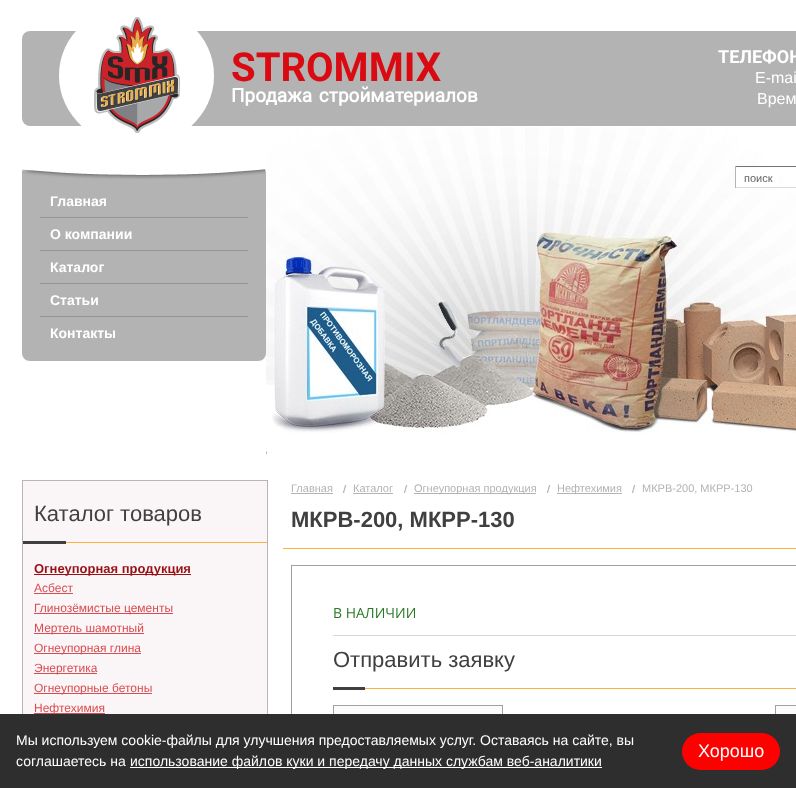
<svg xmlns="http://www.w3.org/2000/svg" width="796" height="788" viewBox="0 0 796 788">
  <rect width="100%" height="100%" fill="rgb(255,255,255)"/>
  <rect x="22" y="31" width="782" height="95" rx="8" fill="rgb(179,179,179)"/>
  <path d="M136 4C179 4 214 36 214 75V76C214 115 179 147 136 147C94 147 59 115 59 76V75C59 36 94 4 136 4Z" fill="rgb(255,255,255)"/>
  <image x="94" y="17" width="86" height="116" href="pic1.png"/>
  <text x="231" y="81" font-family="Roboto" font-size="40" font-weight="bold" fill="rgb(217,10,18)">STROMMIX</text>
  <text x="718" y="63" font-family="Roboto" font-size="18" font-weight="bold" fill="rgb(255,255,255)">ТЕЛЕФОН</text>
  <g font-family="Liberation Sans" font-size="16" fill="rgb(255,255,255)">
    <text x="755" y="83">E-mai</text>
    <text x="757" y="104">Врем</text>
  </g>
  <text x="231" y="102" word-spacing="2" font-family="'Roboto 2'" font-size="19" font-weight="bold" fill="rgb(255,255,255)">Продажа стройматериалов</text>
  <image x="266" y="127" width="530" height="327" href="pic2.png"/>
  <rect x="736" y="168" width="43" height="19" fill="rgb(255,255,255)"/>
  <rect x="735" y="166" width="61" height="1" fill="rgb(115,115,116)"/>
  <rect x="735" y="187" width="61" height="1" fill="rgb(219,218,217)"/>
  <rect x="735" y="166" width="1" height="22" fill="rgb(180,180,181)"/>
  <text x="744" y="182" font-family="Liberation Sans" font-size="11" fill="rgb(98,99,99)">поиск</text>
  <path d="M22 169H266V353C266 357.5 262.5 361 258 361H30C25.5 361 22 357.5 22 353Z" fill="rgb(179,179,179)"/>
  <image x="22" y="169" width="244" height="10" href="pic3.png"/>
  <text x="50" y="206" font-family="Liberation Sans" font-size="14" font-weight="bold" fill="rgb(255,255,255)">Главная</text>
  <rect x="40" y="217" width="208" height="1" fill="rgb(148,148,148)"/>
  <text x="50" y="239" font-family="Liberation Sans" font-size="14" font-weight="bold" fill="rgb(255,255,255)">О компании</text>
  <rect x="40" y="250" width="208" height="1" fill="rgb(148,148,148)"/>
  <text x="50" y="272" font-family="Liberation Sans" font-size="14" font-weight="bold" fill="rgb(255,255,255)">Каталог</text>
  <rect x="40" y="283" width="208" height="1" fill="rgb(148,148,148)"/>
  <text x="50" y="305" font-family="Liberation Sans" font-size="14" font-weight="bold" fill="rgb(255,255,255)">Статьи</text>
  <rect x="40" y="316" width="208" height="1" fill="rgb(148,148,148)"/>
  <text x="50" y="338" font-family="Liberation Sans" font-size="14" font-weight="bold" fill="rgb(255,255,255)">Контакты</text>
  <rect x="23" y="481" width="244" height="233" fill="rgb(250,246,247)"/>
  <rect x="22.5" y="480.5" width="245" height="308" fill="none" stroke="rgb(186,180,180)"/>
  <rect x="66" y="542" width="201" height="1" fill="rgb(252,176,64)"/>
  <text x="34" y="521" font-family="Liberation Sans" font-size="22" fill="rgb(64,64,65)">Каталог товаров</text>
  <rect x="23" y="541" width="43" height="3" fill="rgb(64,64,65)"/>
  <rect x="34" y="574" width="157" height="1" fill="rgb(154,16,21)"/>
  <text x="34" y="573" font-family="Liberation Sans" font-size="13" font-weight="bold" fill="rgb(154,16,21)">Огнеупорная продукция</text>
  <text x="34" y="592" font-family="Liberation Sans" font-size="12" fill="rgb(217,76,81)">Асбест</text>
  <rect x="34" y="593" width="39" height="1" fill="rgb(217,76,81)"/>
  <rect x="34" y="613" width="139" height="1" fill="rgb(217,76,81)"/>
  <text x="34" y="612" font-family="Liberation Sans" font-size="12" fill="rgb(217,76,81)">Глинозёмистые цементы</text>
  <rect x="34" y="633" width="110" height="1" fill="rgb(217,76,81)"/>
  <text x="34" y="632" font-family="Liberation Sans" font-size="12" fill="rgb(217,76,81)">Мертель шамотный</text>
  <rect x="34" y="653" width="107" height="1" fill="rgb(217,76,81)"/>
  <text x="34" y="652" font-family="Liberation Sans" font-size="12" fill="rgb(217,76,81)">Огнеупорная глина</text>
  <rect x="34" y="673" width="63" height="1" fill="rgb(217,76,81)"/>
  <text x="34" y="672" font-family="Liberation Sans" font-size="12" fill="rgb(217,76,81)">Энергетика</text>
  <rect x="34" y="693" width="118" height="1" fill="rgb(217,76,81)"/>
  <text x="34" y="692" font-family="Liberation Sans" font-size="12" fill="rgb(217,76,81)">Огнеупорные бетоны</text>
  <rect x="34" y="713" width="71" height="1" fill="rgb(217,76,81)"/>
  <text x="34" y="712" font-family="Liberation Sans" font-size="12" fill="rgb(217,76,81)">Нефтехимия</text>
  <text x="291" y="492" font-family="Liberation Sans" font-size="11" fill="rgb(179,179,179)">Главная</text>
  <rect x="291" y="493" width="42" height="1" fill="rgb(179,179,179)"/>
  <image x="342" y="485" width="5" height="8" href="pic4.png"/>
  <text x="353" y="492" font-family="Liberation Sans" font-size="11" fill="rgb(179,179,179)">Каталог</text>
  <rect x="353" y="493" width="40" height="1" fill="rgb(179,179,179)"/>
  <image x="403" y="485" width="5" height="8" href="pic4.png"/>
  <rect x="414" y="493" width="122" height="1" fill="rgb(179,179,179)"/>
  <text x="414" y="492" font-family="Liberation Sans" font-size="11" fill="rgb(179,179,179)">Огнеупорная продукция</text>
  <image x="546" y="485" width="5" height="8" href="pic4.png"/>
  <rect x="557" y="493" width="65" height="1" fill="rgb(179,179,179)"/>
  <text x="557" y="492" font-family="Liberation Sans" font-size="11" fill="rgb(179,179,179)">Нефтехимия</text>
  <image x="631" y="485" width="5" height="8" href="pic4.png"/>
  <text x="642" y="492" font-family="Liberation Sans" font-size="11" fill="rgb(179,179,179)">МКРВ-200, МКРР-130</text>
  <rect x="283" y="548" width="513" height="1" fill="rgb(252,176,64)"/>
  <text x="291" y="527" font-family="Liberation Sans" font-size="22" font-weight="bold" fill="rgb(64,64,65)">МКРВ-200, МКРР-130</text>
  <rect x="291.5" y="565.5" width="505" height="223" fill="none" stroke="rgb(160,160,160)"/>
  <text x="333" y="618" font-family="Open Sans" font-size="14" fill="rgb(41,120,37)">В НАЛИЧИИ</text>
  <rect x="333" y="635" width="463" height="1" fill="rgb(223,213,216)"/>
  <rect x="365" y="688" width="431" height="1" fill="rgb(252,176,64)"/>
  <text x="333" y="667" font-family="Liberation Sans" font-size="22" fill="rgb(64,64,65)">Отправить заявку</text>
  <rect x="333" y="687" width="32" height="3" fill="rgb(64,64,65)"/>
  <rect x="334" y="706" width="168" height="8" fill="rgb(251,251,251)"/>
  <rect x="333.5" y="705.5" width="169" height="31" fill="none" stroke="rgb(161,161,161)"/>
  <rect x="776" y="706" width="20" height="8" fill="rgb(251,251,251)"/>
  <rect x="775.5" y="705.5" width="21" height="31" fill="none" stroke="rgb(161,161,161)"/>
  <rect x="0" y="714" width="796" height="74" fill="rgb(46,46,46)"/>
  <g font-family="Liberation Sans" font-size="14" fill="rgb(255,255,255)">
    <text>
      <tspan x="16" y="745">Мы используем cookie-файлы для улучшения предоставляемых услуг. Оставаясь на сайте, вы</tspan>
      <tspan x="16" y="766">соглашаетесь на</tspan>
    </text>
  </g>
  <rect x="130" y="767" width="472" height="1" fill="rgb(255,255,255)"/>
  <text x="130" y="766" font-family="Liberation Sans" font-size="14" fill="rgb(255,255,255)">использование файлов куки и передачу данных службам веб-аналитики</text>
  <rect x="682" y="733" width="98" height="37" rx="18.5" fill="rgb(255,0,0)"/>
  <text x="698" y="757" font-family="Liberation Sans" font-size="18" fill="rgb(255,255,255)">Хорошо</text>
</svg>
